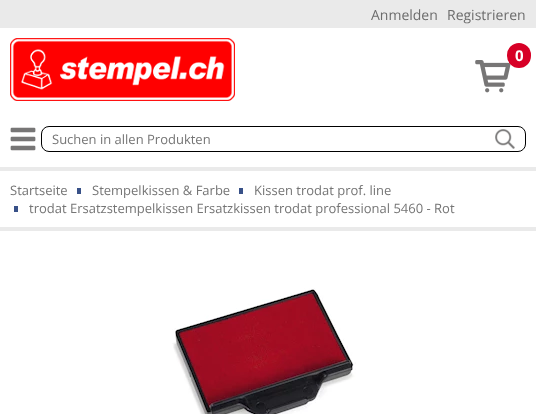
<svg xmlns="http://www.w3.org/2000/svg" width="536" height="414" viewBox="0 0 536 414">
  <rect width="100%" height="100%" fill="rgb(234,234,234)"/>
  <g font-family="Open Sans" font-size="14" fill="rgb(108,108,108)">
    <text x="371" y="20">Anmelden</text>
    <text x="447" y="20">Registrieren</text>
  </g>
  <rect x="0" y="28" width="536" height="139" fill="rgb(255,255,255)"/>
  <image x="10" y="38" width="225" height="63" href="pic1.png"/>
  <image x="475" y="60" width="36" height="33" href="pic2.png"/>
  <rect x="507" y="43" width="24" height="25" rx="12" fill="rgb(215,0,38)"/>
  <text x="515" y="61" font-family="Open Sans" font-size="15" font-weight="bold" fill="rgb(255,255,255)">0</text>
  <image x="10" y="127" width="26" height="24" href="pic3.png"/>
  <rect x="41.5" y="126.5" width="484" height="25" rx="7.5" fill="none" stroke="rgb(0,0,0)"/>
  <text x="52" y="144" font-family="Open Sans" font-size="13" fill="rgb(117,117,117)">Suchen in allen Produkten</text>
  <image x="495" y="129" width="20" height="20" href="pic4.png"/>
  <rect x="0" y="171" width="536" height="56" fill="rgb(255,255,255)"/>
  <text x="10" y="195" font-family="Open Sans" font-size="13" fill="rgb(117,117,117)">Startseite</text>
  <rect x="77" y="188" width="4" height="6" fill="rgb(56,81,136)"/>
  <text x="92" y="195" font-family="Open Sans" font-size="13" fill="rgb(117,117,117)">Stempelkissen &amp; Farbe</text>
  <rect x="239" y="188" width="4" height="6" fill="rgb(56,81,136)"/>
  <text x="254" y="195" font-family="Open Sans" font-size="13" fill="rgb(117,117,117)">Kissen trodat prof. line</text>
  <rect x="14" y="206" width="4" height="6" fill="rgb(56,81,136)"/>
  <text x="29" y="213" font-family="Open Sans" font-size="13" fill="rgb(117,117,117)">trodat Ersatzstempelkissen Ersatzkissen trodat professional 5460 - Rot</text>
  <rect x="0" y="231" width="536" height="183" fill="rgb(255,255,255)"/>
  <image x="172" y="288" width="184" height="126" href="pic5.png"/>
</svg>
